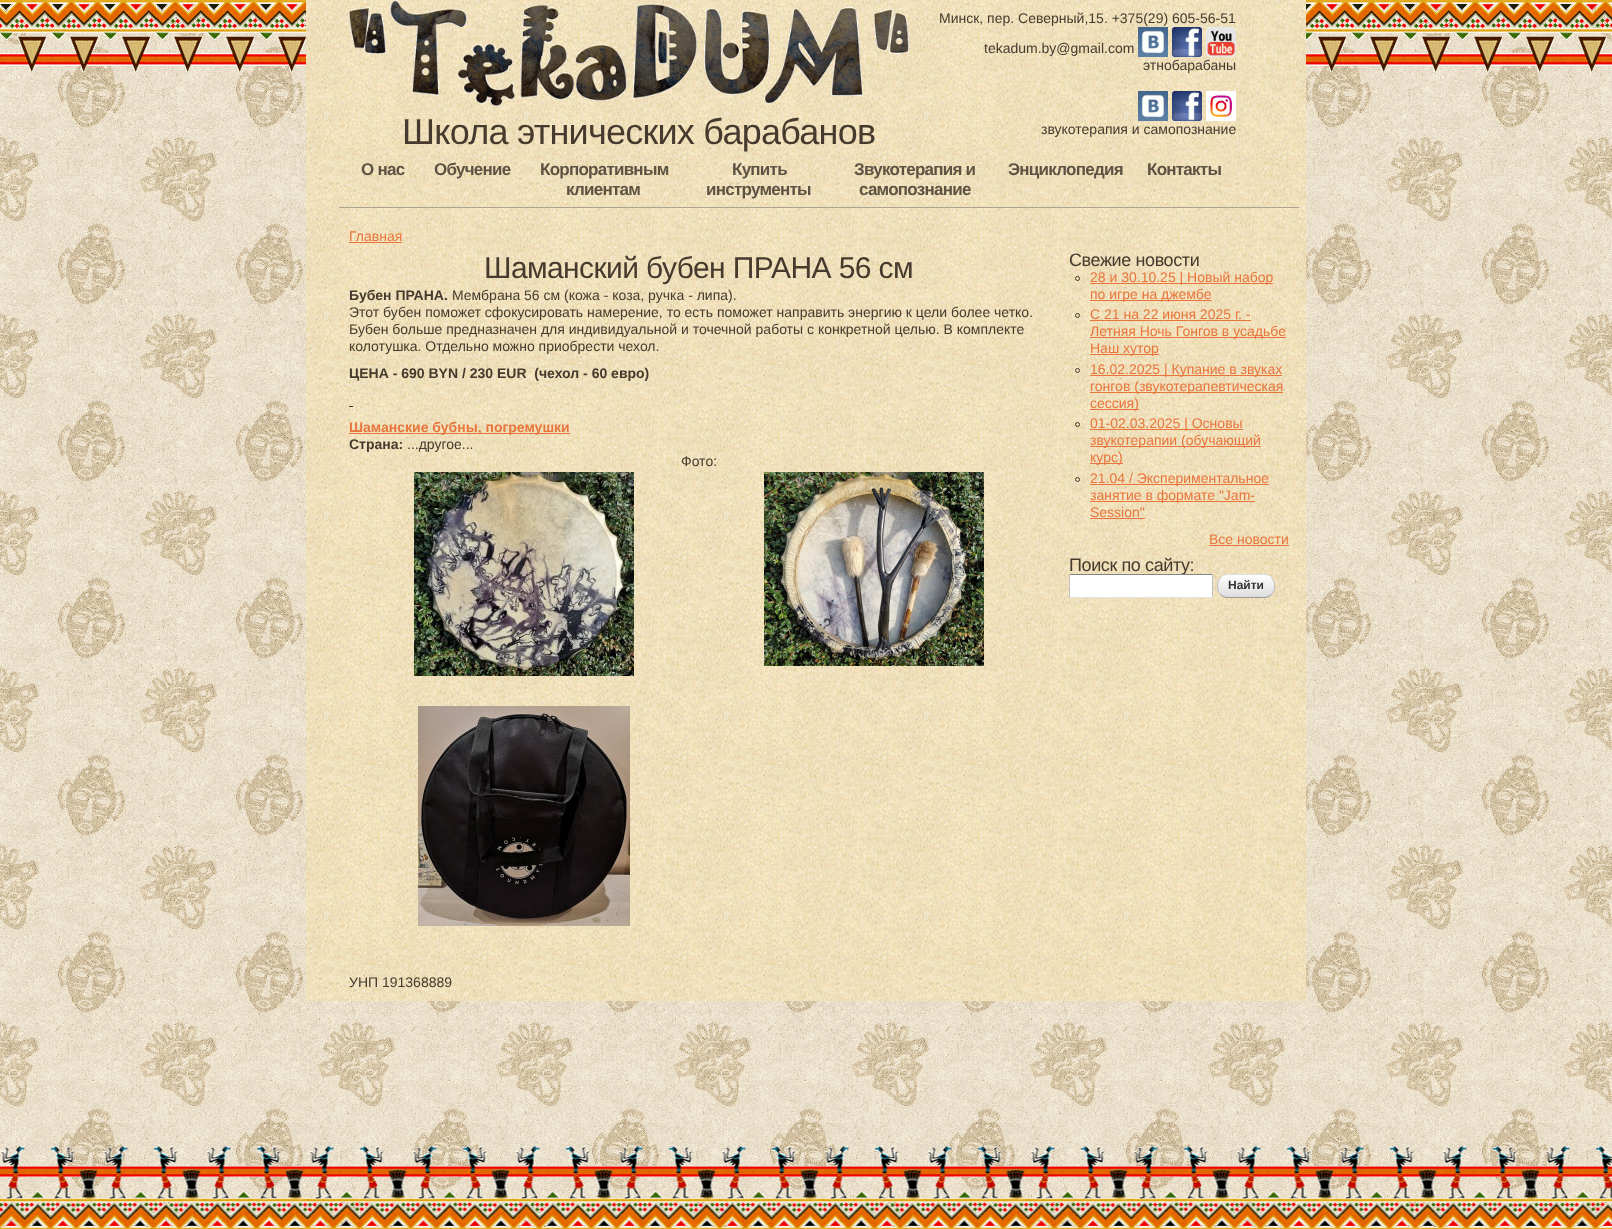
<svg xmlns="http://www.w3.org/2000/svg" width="1612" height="1229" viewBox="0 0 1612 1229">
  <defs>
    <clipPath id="clip1"><rect x="1217" y="574" width="58" height="24" rx="11"/></clipPath>
    <linearGradient id="g1" gradientUnits="userSpaceOnUse" x1="1218" y1="575" x2="1218" y2="597"><stop offset="0" stop-color="rgb(255,255,255)"/><stop offset="1" stop-color="rgb(221,221,221)"/></linearGradient>
  </defs>
  <rect width="100%" height="100%" fill="rgb(255,255,255)"/>
  <image x="0" y="4" width="1612" height="1223" href="pic1.png"/>
  <image x="0" y="1146" width="1612" height="83" href="pic2.png"/>
  <image x="0" y="0" width="1612" height="72" href="pic3.png"/>
  <image x="306" y="0" width="1000" height="1001" href="pic4.png"/>
  <image x="349" y="0" width="560" height="106" href="pic5.png"/>
  <text x="402" y="144" font-family="Liberation Sans" font-size="36" letter-spacing="-0.75" fill="rgb(69,58,45)">Школа этнических барабанов</text>
  <g font-family="Liberation Sans" font-size="14" fill="rgb(69,58,45)">
    <text x="939" y="23">Минск, пер. Северный,15. +375(29) 605-56-51</text>
    <text x="984" y="53">tekadum.by@gmail.com</text>
  </g>
  <image x="1138" y="27" width="30" height="30" href="pic6.png"/>
  <image x="1172" y="27" width="30" height="30" href="pic7.png"/>
  <image x="1206" y="27" width="30" height="30" href="pic8.png"/>
  <text x="1143" y="70" font-family="Liberation Sans" font-size="14" fill="rgb(69,58,45)">этнобарабаны</text>
  <image x="1138" y="91" width="30" height="30" href="pic6.png"/>
  <image x="1172" y="91" width="30" height="30" href="pic7.png"/>
  <image x="1206" y="91" width="30" height="30" href="pic9.png"/>
  <text x="1041" y="134" font-family="Liberation Sans" font-size="14" fill="rgb(69,58,45)">звукотерапия и самопознание</text>
  <rect x="339" y="207" width="960" height="1" fill="rgb(171,164,142)"/>
  <g font-family="Liberation Sans" font-size="17" font-weight="bold" letter-spacing="-0.75" fill="rgb(94,83,66)">
    <text x="361" y="175">О нас</text>
    <text x="434" y="175">Обучение</text>
    <text x="540" y="175">Корпоративным</text>
    <text x="566" y="195">клиентам</text>
    <text x="732" y="175">Купить</text>
    <text x="706" y="195">инструменты</text>
    <text x="854" y="175">Звукотерапия и</text>
    <text x="859" y="195">самопознание</text>
  </g>
  <image x="996" y="153" width="139" height="34" href="pic10.png"/>
  <text x="1008" y="175" font-family="Liberation Sans" font-size="17" font-weight="bold" letter-spacing="-0.75" fill="rgb(94,83,66)">Энциклопедия</text>
  <image x="1135" y="153" width="99" height="34" href="pic11.png"/>
  <text x="1147" y="175" font-family="Liberation Sans" font-size="17" font-weight="bold" letter-spacing="-0.75" fill="rgb(94,83,66)">Контакты</text>
  <text x="349" y="241" font-family="Liberation Sans" font-size="14" fill="rgb(232,117,60)">Главная</text>
  <rect x="349" y="242" width="53" height="1" fill="rgb(232,117,60)"/>
  <text x="484" y="278" font-family="Liberation Sans" font-size="30" letter-spacing="-0.6" fill="rgb(69,58,45)">Шаманский бубен ПРАНА 56 см</text>
  <text x="349" y="300" font-family="Liberation Sans" font-size="14" font-weight="bold" fill="rgb(69,58,45)">Бубен ПРАНА.</text>
  <g font-family="Liberation Sans" font-size="14" fill="rgb(69,58,45)">
    <text x="452" y="300">Мембрана 56 см (кожа - коза, ручка - липа).</text>
    <text>
      <tspan x="349" y="317">Этот бубен поможет сфокусировать намерение, то есть поможет направить энергию к цели более четко.</tspan>
      <tspan x="349" y="334">Бубен больше предназначен для индивидуальной и точечной работы с конкретной целью. В комплекте</tspan>
      <tspan x="349" y="351">колотушка. Отдельно можно приобрести чехол.</tspan>
    </text>
  </g>
  <text x="349" y="378" font-family="Liberation Sans" font-size="14" font-weight="bold" fill="rgb(69,58,45)" xml:space="preserve">ЦЕНА - 690 BYN / 230 EUR  (чехол - 60 евро)</text>
  <rect x="349" y="406" width="4" height="1" fill="rgb(69,58,45)"/>
  <rect x="349" y="433" width="221" height="1" fill="rgb(232,117,60)"/>
  <text x="349" y="432" font-family="Liberation Sans" font-size="14" font-weight="bold" fill="rgb(232,117,60)">Шаманские бубны, погремушки</text>
  <text x="349" y="449" font-family="Liberation Sans" font-size="14" font-weight="bold" fill="rgb(69,58,45)">Страна:</text>
  <g font-family="Liberation Sans" font-size="14" fill="rgb(69,58,45)">
    <text x="407" y="449">...другое...</text>
    <text x="681" y="466">Фото:</text>
  </g>
  <image x="414" y="472" width="220" height="204" href="pic12.png"/>
  <image x="764" y="472" width="220" height="194" href="pic13.png"/>
  <image x="418" y="706" width="212" height="220" href="pic14.png"/>
  <text x="1069" y="266" font-family="Liberation Sans" font-size="18" letter-spacing="-0.4" fill="rgb(69,58,45)">Свежие новости</text>
  <circle cx="1077.5" cy="278.5" r="2" fill="none" stroke="rgb(69,58,45)"/>
  <rect x="1090" y="283" width="183" height="1" fill="rgb(232,117,60)"/>
  <text x="1090" y="282" font-family="Liberation Sans" font-size="14" fill="rgb(232,117,60)">28 и 30.10.25 | Новый набор</text>
  <rect x="1090" y="300" width="122" height="1" fill="rgb(232,117,60)"/>
  <text x="1090" y="299" font-family="Liberation Sans" font-size="14" fill="rgb(232,117,60)">по игре на джембе</text>
  <circle cx="1077.5" cy="315.5" r="2" fill="none" stroke="rgb(69,58,45)"/>
  <text x="1090" y="319" font-family="Liberation Sans" font-size="14" fill="rgb(232,117,60)">С 21 на 22 июня 2025 г. -</text>
  <rect x="1090" y="320" width="161" height="1" fill="rgb(232,117,60)"/>
  <rect x="1090" y="337" width="196" height="1" fill="rgb(232,117,60)"/>
  <text x="1090" y="336" font-family="Liberation Sans" font-size="14" fill="rgb(232,117,60)">Летняя Ночь Гонгов в усадьбе</text>
  <rect x="1090" y="354" width="69" height="1" fill="rgb(232,117,60)"/>
  <text x="1090" y="353" font-family="Liberation Sans" font-size="14" fill="rgb(232,117,60)">Наш хутор</text>
  <circle cx="1077.5" cy="370.5" r="2" fill="none" stroke="rgb(69,58,45)"/>
  <rect x="1090" y="375" width="192" height="1" fill="rgb(232,117,60)"/>
  <text x="1090" y="374" font-family="Liberation Sans" font-size="14" fill="rgb(232,117,60)">16.02.2025 | Купание в звуках</text>
  <rect x="1090" y="392" width="193" height="1" fill="rgb(232,117,60)"/>
  <text x="1090" y="391" font-family="Liberation Sans" font-size="14" fill="rgb(232,117,60)">гонгов (звукотерапевтическая</text>
  <rect x="1090" y="409" width="49" height="1" fill="rgb(232,117,60)"/>
  <text x="1090" y="408" font-family="Liberation Sans" font-size="14" fill="rgb(232,117,60)">сессия)</text>
  <circle cx="1077.5" cy="424.5" r="2" fill="none" stroke="rgb(69,58,45)"/>
  <rect x="1090" y="429" width="153" height="1" fill="rgb(232,117,60)"/>
  <text x="1090" y="428" font-family="Liberation Sans" font-size="14" fill="rgb(232,117,60)">01-02.03.2025 | Основы</text>
  <rect x="1090" y="446" width="171" height="1" fill="rgb(232,117,60)"/>
  <text x="1090" y="445" font-family="Liberation Sans" font-size="14" fill="rgb(232,117,60)">звукотерапии (обучающий</text>
  <rect x="1090" y="463" width="33" height="1" fill="rgb(232,117,60)"/>
  <text x="1090" y="462" font-family="Liberation Sans" font-size="14" fill="rgb(232,117,60)">курс)</text>
  <circle cx="1077.5" cy="479.5" r="2" fill="none" stroke="rgb(69,58,45)"/>
  <rect x="1090" y="484" width="179" height="1" fill="rgb(232,117,60)"/>
  <text x="1090" y="483" font-family="Liberation Sans" font-size="14" fill="rgb(232,117,60)">21.04 / Экспериментальное</text>
  <rect x="1090" y="501" width="165" height="1" fill="rgb(232,117,60)"/>
  <g font-family="Liberation Sans" font-size="14" fill="rgb(232,117,60)">
    <text>
      <tspan x="1090" y="500">занятие в формате "Jam-</tspan>
      <tspan x="1090" y="517">Session"</tspan>
    </text>
  </g>
  <rect x="1090" y="518" width="55" height="1" fill="rgb(232,117,60)"/>
  <text x="1209" y="544" font-family="Liberation Sans" font-size="14" fill="rgb(232,117,60)">Все новости</text>
  <rect x="1209" y="545" width="80" height="1" fill="rgb(232,117,60)"/>
  <text x="1069" y="571" font-family="Liberation Sans" font-size="18" letter-spacing="-0.4" fill="rgb(69,58,45)">Поиск по сайту:</text>
  <rect x="1070" y="575" width="142" height="22" fill="rgb(255,255,255)"/>
  <rect x="1069" y="574" width="144" height="1" fill="rgb(132,132,132)"/>
  <rect x="1212" y="574" width="1" height="24" fill="rgb(193,193,193)"/>
  <rect x="1069" y="597" width="144" height="1" fill="rgb(225,225,225)"/>
  <rect x="1069" y="574" width="1" height="24" fill="rgb(193,193,193)"/>
  <g clip-path="url(#clip1)">
    <rect x="1217" y="575" width="58" height="22" fill="url(#g1)"/>
  </g>
  <path d="M1220.5 577.5C1222.5 575.5 1225 574.5 1228 574.5H1264C1267 574.5 1269.5 575.5 1271.5 577.5" fill="none" stroke="rgb(221,221,221)"/>
  <path d="M1271.5 577.5C1275.5 582 1275.5 590 1271.5 594.5" fill="none" stroke="rgb(187,187,187)"/>
  <path d="M1271.5 594.5C1269.5 596.5 1267 597.5 1264 597.5H1228C1225 597.5 1222.5 596.5 1220.5 594.5" fill="none" stroke="rgb(153,153,153)"/>
  <path d="M1220.5 594.5C1216.5 590 1216.5 582 1220.5 577.5" fill="none" stroke="rgb(187,187,187)"/>
  <text x="1228" y="589" font-family="Liberation Sans" font-size="12" font-weight="bold" fill="rgb(51,51,51)">Найти</text>
  <text x="349" y="987" font-family="Liberation Sans" font-size="14" fill="rgb(69,58,45)">УНП 191368889</text>
</svg>
